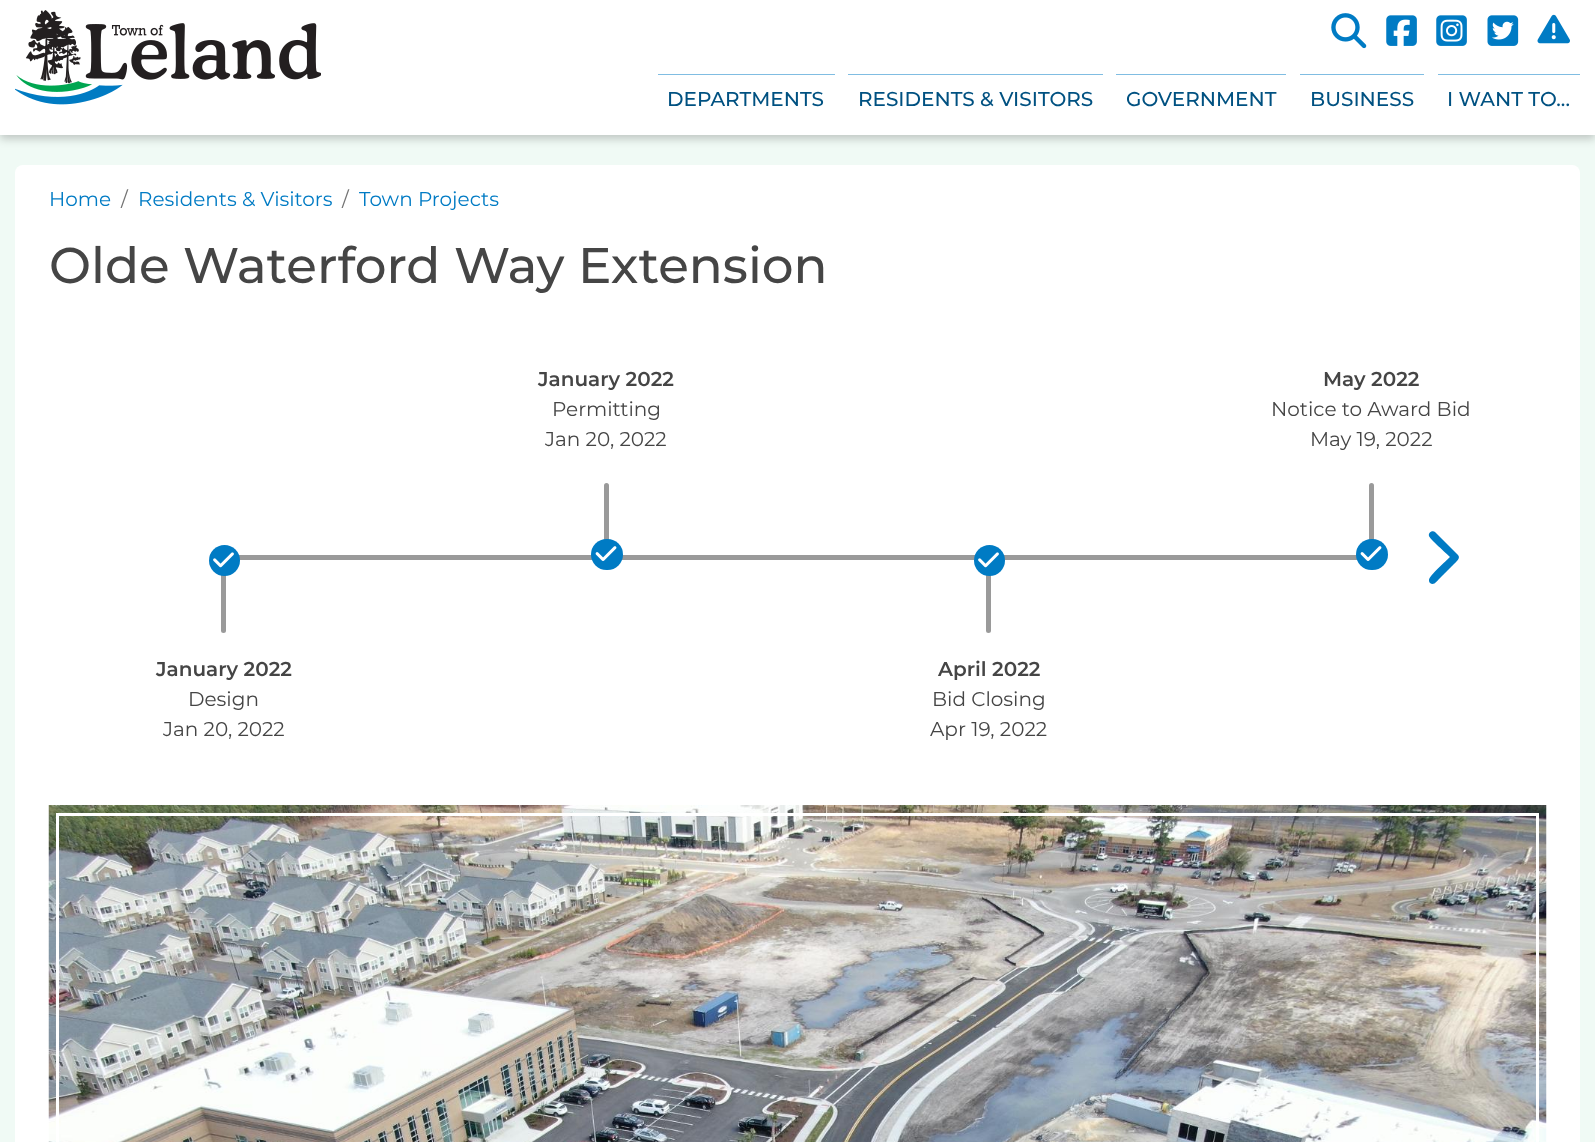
<svg xmlns="http://www.w3.org/2000/svg" width="1595" height="1142" viewBox="0 0 1595 1142">
  <rect width="100%" height="100%" fill="rgb(240,250,245)"/>
  <rect x="0" y="4" width="1595" height="135" fill="rgba(0,0,0,0.2)" filter="blur(4.5px)"/>
  <rect x="0" y="0" width="1595" height="135" fill="rgb(255,255,255)"/>
  <image x="15" y="10" width="306" height="95" href="pic1.png"/>
  <image x="1331" y="13" width="36" height="36" href="pic2.png"/>
  <image x="1386" y="15" width="31" height="31" href="pic3.png"/>
  <image x="1436" y="15" width="31" height="31" href="pic4.png"/>
  <image x="1487" y="15" width="32" height="31" href="pic5.png"/>
  <image x="1537" y="14" width="33" height="30" href="pic6.png"/>
  <rect x="658" y="74" width="177" height="1" fill="rgb(128,189,226)"/>
  <text x="667" y="106" font-family="Montserrat" font-size="20" font-weight="500" fill="rgb(0,81,129)">DEPARTMENTS</text>
  <rect x="848" y="74" width="255" height="1" fill="rgb(128,189,226)"/>
  <text x="858" y="106" font-family="Montserrat" font-size="20" font-weight="500" fill="rgb(0,81,129)">RESIDENTS &amp; VISITORS</text>
  <rect x="1116" y="74" width="170" height="1" fill="rgb(128,189,226)"/>
  <text x="1126" y="106" font-family="Montserrat" font-size="20" font-weight="500" fill="rgb(0,81,129)">GOVERNMENT</text>
  <rect x="1300" y="74" width="124" height="1" fill="rgb(128,189,226)"/>
  <text x="1310" y="106" font-family="Montserrat" font-size="20" font-weight="500" fill="rgb(0,81,129)">BUSINESS</text>
  <rect x="1438" y="74" width="142" height="1" fill="rgb(128,189,226)"/>
  <text x="1447" y="106" font-family="Montserrat" font-size="20" font-weight="500" fill="rgb(0,81,129)">I WANT TO...</text>
  <rect x="15" y="165" width="1565" height="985" rx="8" fill="rgb(255,255,255)"/>
  <text x="49" y="206" font-family="Montserrat" font-size="20" fill="rgb(0,123,196)">Home</text>
  <text x="121" y="206" font-family="Montserrat" font-size="20" fill="rgb(116,116,116)">/</text>
  <text x="138" y="206" font-family="Montserrat" font-size="20" fill="rgb(0,123,196)">Residents &amp; Visitors</text>
  <text x="342" y="206" font-family="Montserrat" font-size="20" fill="rgb(116,116,116)">/</text>
  <text x="359" y="206" font-family="Montserrat" font-size="20" fill="rgb(0,123,196)">Town Projects</text>
  <text x="49" y="283" font-family="Montserrat" font-size="50" font-weight="500" fill="rgb(69,69,69)">Olde Waterford Way Extension</text>
  <text x="538" y="386" font-family="Montserrat" font-size="20" font-weight="600" fill="rgb(69,69,69)">January 2022</text>
  <g font-family="Montserrat" font-size="20" fill="rgb(69,69,69)">
    <text x="552" y="416">Permitting</text>
    <text x="545" y="446">Jan 20, 2022</text>
  </g>
  <rect x="604" y="483" width="5" height="77" rx="2.5" fill="rgb(154,154,154)"/>
  <rect x="986" y="555" width="5" height="78" rx="2.5" fill="rgb(154,154,154)"/>
  <rect x="239" y="555" width="1118" height="5" fill="rgb(154,154,154)"/>
  <rect x="591" y="539" width="32" height="31" rx="15.5" fill="rgb(0,123,196)"/>
  <image x="595" y="546" width="22" height="15" href="pic7.png"/>
  <text x="1323" y="386" font-family="Montserrat" font-size="20" font-weight="600" fill="rgb(69,69,69)">May 2022</text>
  <g font-family="Montserrat" font-size="20" fill="rgb(69,69,69)">
    <text x="1271" y="416">Notice to Award Bid</text>
    <text x="1310" y="446">May 19, 2022</text>
  </g>
  <rect x="1369" y="483" width="5" height="77" rx="2.5" fill="rgb(154,154,154)"/>
  <rect x="1356" y="539" width="32" height="31" rx="15.5" fill="rgb(0,123,196)"/>
  <image x="1360" y="546" width="22" height="15" href="pic7.png"/>
  <rect x="221" y="555" width="5" height="78" rx="2.5" fill="rgb(154,154,154)"/>
  <circle cx="224.5" cy="560.5" r="15.5" fill="rgb(0,123,196)"/>
  <image x="213" y="552" width="21" height="16" href="pic8.png"/>
  <text x="156" y="676" font-family="Montserrat" font-size="20" font-weight="600" fill="rgb(69,69,69)">January 2022</text>
  <g font-family="Montserrat" font-size="20" fill="rgb(69,69,69)">
    <text x="188" y="706">Design</text>
    <text x="163" y="736">Jan 20, 2022</text>
  </g>
  <circle cx="989.5" cy="560.5" r="15.5" fill="rgb(0,123,196)"/>
  <image x="978" y="552" width="21" height="16" href="pic8.png"/>
  <text x="938" y="676" font-family="Montserrat" font-size="20" font-weight="600" fill="rgb(69,69,69)">April 2022</text>
  <g font-family="Montserrat" font-size="20" fill="rgb(69,69,69)">
    <text x="932" y="706">Bid Closing</text>
    <text x="930" y="736">Apr 19, 2022</text>
  </g>
  <path d="M1458 555C1461 558 1456 562 1454 564L1439 579C1437 581 1434 586 1430 583C1429 582 1429 581 1429 580C1429 576 1446 561 1450 557C1447 554 1429 538 1429 536C1428 532 1433 530 1435 532Z" fill="rgb(0,123,196)"/>
  <image x="48" y="805" width="1499" height="337" href="pic9.png"/>
  <rect x="57.5" y="814.5" width="1480" height="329" fill="none" stroke="rgb(255,255,255)" stroke-width="3"/>
</svg>
